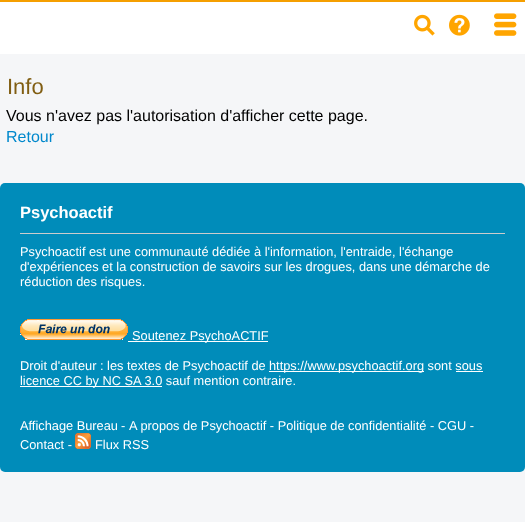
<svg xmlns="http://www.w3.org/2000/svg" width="525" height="522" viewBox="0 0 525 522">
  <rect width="100%" height="100%" fill="rgb(245,246,248)"/>
  <rect x="0" y="2" width="525" height="52" fill="rgb(255,255,255)"/>
  <rect x="0" y="0" width="525" height="2" fill="rgb(245,159,0)"/>
  <image x="414" y="14" width="21" height="22" href="pic1.png"/>
  <image x="449" y="14" width="21" height="22" href="pic2.png"/>
  <image x="494" y="13" width="23" height="23" href="pic3.png"/>
  <text x="7" y="94" font-family="Liberation Sans" font-size="22" fill="rgb(129,94,19)">Info</text>
  <text x="6" y="121" font-family="Liberation Sans" font-size="16" fill="rgb(0,0,0)">Vous n'avez pas l'autorisation d'afficher cette page.</text>
  <text x="6" y="142" font-family="Liberation Sans" font-size="16" fill="rgb(0,136,204)">Retour</text>
  <rect x="0" y="183" width="525" height="289" rx="5" fill="rgb(0,140,186)"/>
  <rect x="20" y="233" width="485" height="1" fill="rgb(204,204,204)"/>
  <text x="20" y="218" font-family="Liberation Sans" font-size="16.5" font-weight="bold" fill="rgb(255,255,255)">Psychoactif</text>
  <g font-family="Liberation Sans" font-size="12.8" fill="rgb(255,255,255)">
    <text>
      <tspan x="20" y="256">Psychoactif est une communauté dédiée à l'information, l'entraide, l'échange</tspan>
      <tspan x="20" y="271">d'expériences et la construction de savoirs sur les drogues, dans une démarche de</tspan>
      <tspan x="20" y="286">réduction des risques.</tspan>
    </text>
  </g>
  <image x="20" y="319" width="108" height="21" href="pic4.png"/>
  <rect x="128" y="341" width="140" height="1" fill="rgb(255,255,255)"/>
  <g font-family="Liberation Sans" font-size="12.8" fill="rgb(255,255,255)">
    <text x="132" y="340">Soutenez PsychoACTIF</text>
    <text x="20" y="370">Droit d'auteur : les textes de Psychoactif de</text>
  </g>
  <rect x="269" y="371" width="155" height="1" fill="rgb(255,255,255)"/>
  <text x="269" y="370" font-family="Liberation Sans" font-size="12.8" fill="rgb(255,255,255)">https://www.psychoactif.org sont sous</text>
  <rect x="20" y="386" width="142" height="1" fill="rgb(255,255,255)"/>
  <text x="20" y="385" font-family="Liberation Sans" font-size="12.8" fill="rgb(255,255,255)">licence CC by NC SA 3.0 sauf mention contraire.</text>
  <rect x="456" y="371" width="27" height="1" fill="rgb(255,255,255)"/>
  <g font-family="Liberation Sans" font-size="12.8" fill="rgb(255,255,255)">
    <text x="20" y="430">Affichage Bureau</text>
    <text x="121" y="430">-</text>
    <text x="129" y="430">A propos de Psychoactif - Politique de confidentialité - CGU -</text>
    <text x="20" y="449">Contact -</text>
  </g>
  <image x="75" y="433" width="16" height="16" href="pic5.png"/>
  <text x="95" y="449" font-family="Liberation Sans" font-size="12.8" fill="rgb(255,255,255)">Flux RSS</text>
</svg>
